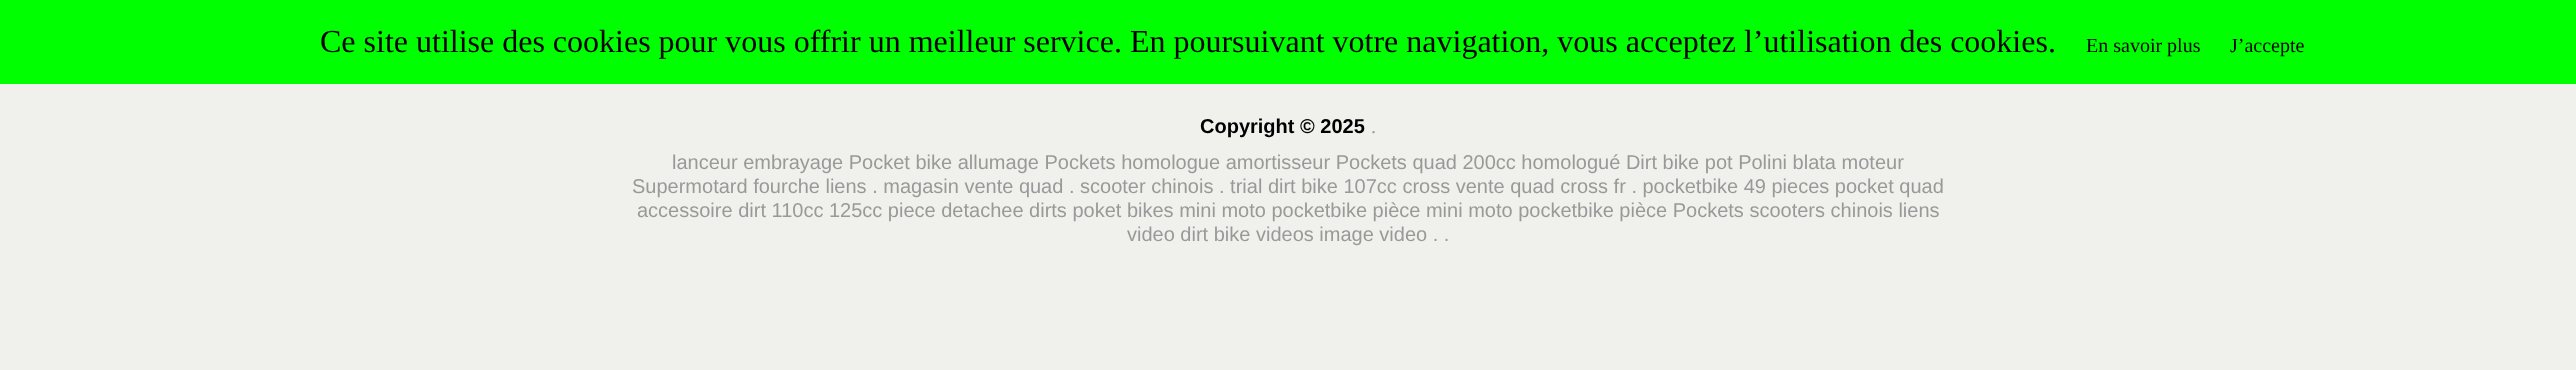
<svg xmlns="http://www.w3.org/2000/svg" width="2576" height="370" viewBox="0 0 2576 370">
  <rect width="100%" height="100%" fill="rgb(240,240,237)"/>
  <rect x="0" y="0" width="2576" height="84" fill="rgb(0,255,0)"/>
  <text x="320" y="52" font-family="Liberation Serif" font-size="32" fill="rgb(0,0,0)">Ce site utilise des cookies pour vous offrir un meilleur service. En poursuivant votre navigation, vous acceptez l’utilisation des cookies.</text>
  <g font-family="Liberation Serif" font-size="20" fill="rgb(0,0,0)">
    <text x="2086" y="52">En savoir plus</text>
    <text x="2230" y="52">J’accepte</text>
  </g>
  <text x="1200" y="133" font-family="Liberation Sans" font-size="20" font-weight="bold" fill="rgb(0,0,0)">Copyright © 2025</text>
  <text x="1371" y="133" font-family="Liberation Serif" font-size="20" fill="rgb(153,153,153)">.</text>
  <g font-family="Liberation Sans" font-size="20" fill="rgb(153,153,153)">
    <text x="672" y="169">lanceur embrayage Pocket bike allumage Pockets homologue amortisseur Pockets quad 200cc homologué Dirt bike pot Polini blata moteur</text>
    <text x="632" y="193">Supermotard fourche liens . magasin vente quad . scooter chinois . trial dirt bike 107cc cross vente quad cross fr . pocketbike 49 pieces pocket quad</text>
    <text x="637" y="217">accessoire dirt 110cc 125cc piece detachee dirts poket bikes mini moto pocketbike pièce mini moto pocketbike pièce Pockets scooters chinois liens</text>
    <text x="1127" y="241">video dirt bike videos image video . .</text>
  </g>
</svg>
